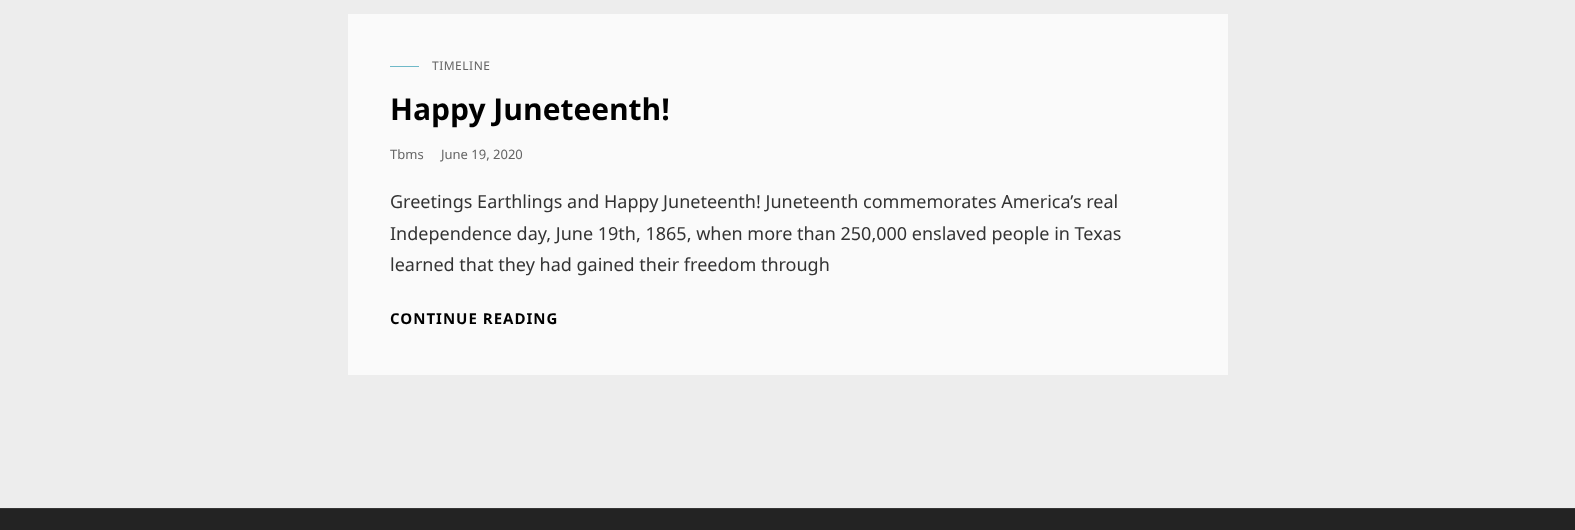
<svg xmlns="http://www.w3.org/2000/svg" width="1575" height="530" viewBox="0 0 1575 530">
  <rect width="100%" height="100%" fill="rgb(237,237,237)"/>
  <rect x="348" y="14" width="880" height="361" fill="rgb(250,250,250)"/>
  <rect x="390" y="66" width="29" height="1" fill="rgb(111,185,200)"/>
  <text x="432" y="70" font-family="Noto Sans" font-size="12" letter-spacing="0.5" fill="rgb(100,100,100)">TIMELINE</text>
  <text x="390" y="120" font-family="Noto Sans" font-size="30" font-weight="bold" fill="rgb(0,0,0)">Happy Juneteenth!</text>
  <g font-family="Noto Sans" font-size="13" fill="rgb(100,100,100)">
    <text x="390" y="159">Tbms</text>
    <text x="441" y="159">June 19, 2020</text>
  </g>
  <g font-family="Noto Sans" font-size="18" fill="rgb(51,51,51)">
    <text>
      <tspan x="390" y="208">Greetings Earthlings and Happy Juneteenth! Juneteenth commemorates America’s real</tspan>
      <tspan x="390" y="240">Independence day, June 19th, 1865, when more than 250,000 enslaved people in Texas</tspan>
      <tspan x="390" y="271">learned that they had gained their freedom through</tspan>
    </text>
  </g>
  <text x="390" y="324" font-family="Noto Sans" font-size="15" font-weight="bold" letter-spacing="1" fill="rgb(0,0,0)">CONTINUE READING</text>
  <rect x="0" y="509" width="1575" height="21" fill="rgb(35,35,35)"/>
  <rect x="0" y="508" width="1575" height="1" fill="rgb(54,54,54)"/>
</svg>
